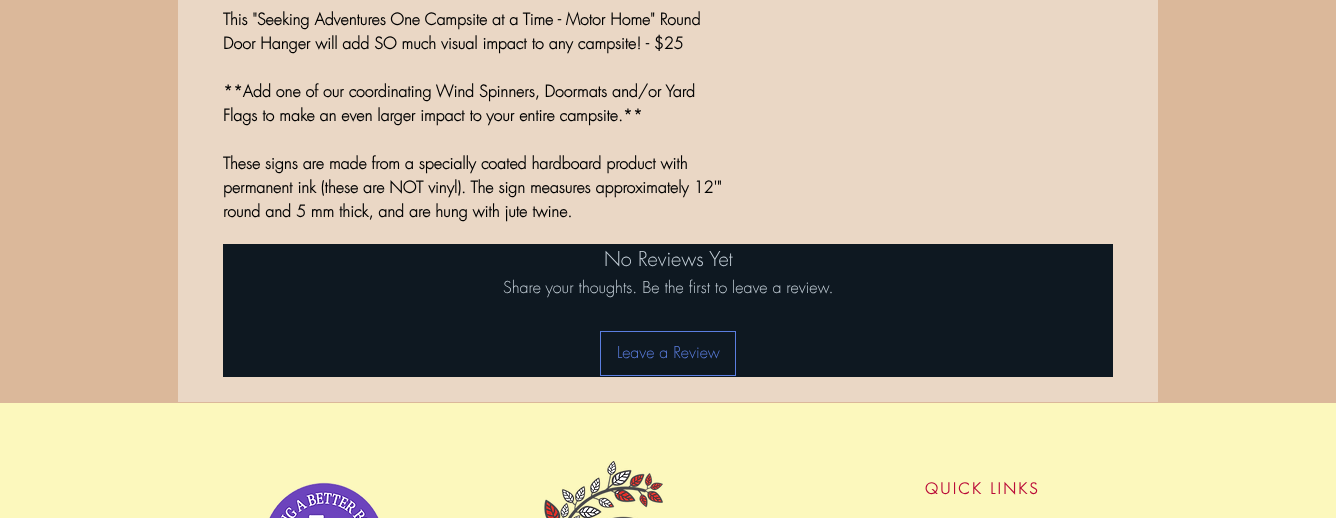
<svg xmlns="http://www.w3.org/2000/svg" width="1336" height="518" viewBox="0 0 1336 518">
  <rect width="100%" height="100%" fill="rgb(219,184,154)"/>
  <rect x="178" y="0" width="980" height="402" fill="rgb(234,215,197)"/>
  <g font-family="futura" font-size="16" font-weight="bold" fill="rgb(0,0,0)">
    <text>
      <tspan x="223" y="25">This "Seeking Adventures One Campsite at a Time - Motor Home" Round</tspan>
      <tspan x="223" y="49">Door Hanger will add SO much visual impact to any campsite! - $25</tspan>
    </text>
    <text>
      <tspan x="223" y="97">**Add one of our coordinating Wind Spinners, Doormats and/or Yard</tspan>
      <tspan x="223" y="121">Flags to make an even larger impact to your entire campsite.**</tspan>
    </text>
    <text>
      <tspan x="223" y="169">These signs are made from a specially coated hardboard product with</tspan>
      <tspan x="223" y="193">permanent ink (these are NOT vinyl). The sign measures approximately 12'"</tspan>
      <tspan x="223" y="217">round and 5 mm thick, and are hung with jute twine.</tspan>
    </text>
  </g>
  <rect x="223" y="244" width="890" height="133" fill="rgb(14,24,33)"/>
  <text x="604" y="266" font-family="futura" font-size="20" font-weight="300" fill="rgb(197,208,217)">No Reviews Yet</text>
  <text x="503" y="293" font-family="futura" font-size="16" font-weight="300" fill="rgb(197,208,217)">Share your thoughts. Be the first to leave a review.</text>
  <rect x="600.5" y="331.5" width="135" height="44" fill="none" stroke="rgb(91,126,224)"/>
  <text x="617" y="358" font-family="futura" font-size="16" font-weight="300" fill="rgb(91,126,224)">Leave a Review</text>
  <rect x="0" y="403" width="1336" height="115" fill="rgb(252,248,189)"/>
  <image x="269" y="482" width="110" height="36" href="pic1.png"/>
  <image x="544" y="461" width="119" height="57" href="pic2.png"/>
  <text x="925" y="494" font-family="futura" font-size="15" font-weight="bold" letter-spacing="2.5" fill="rgb(186,11,56)">QUICK LINKS</text>
</svg>
